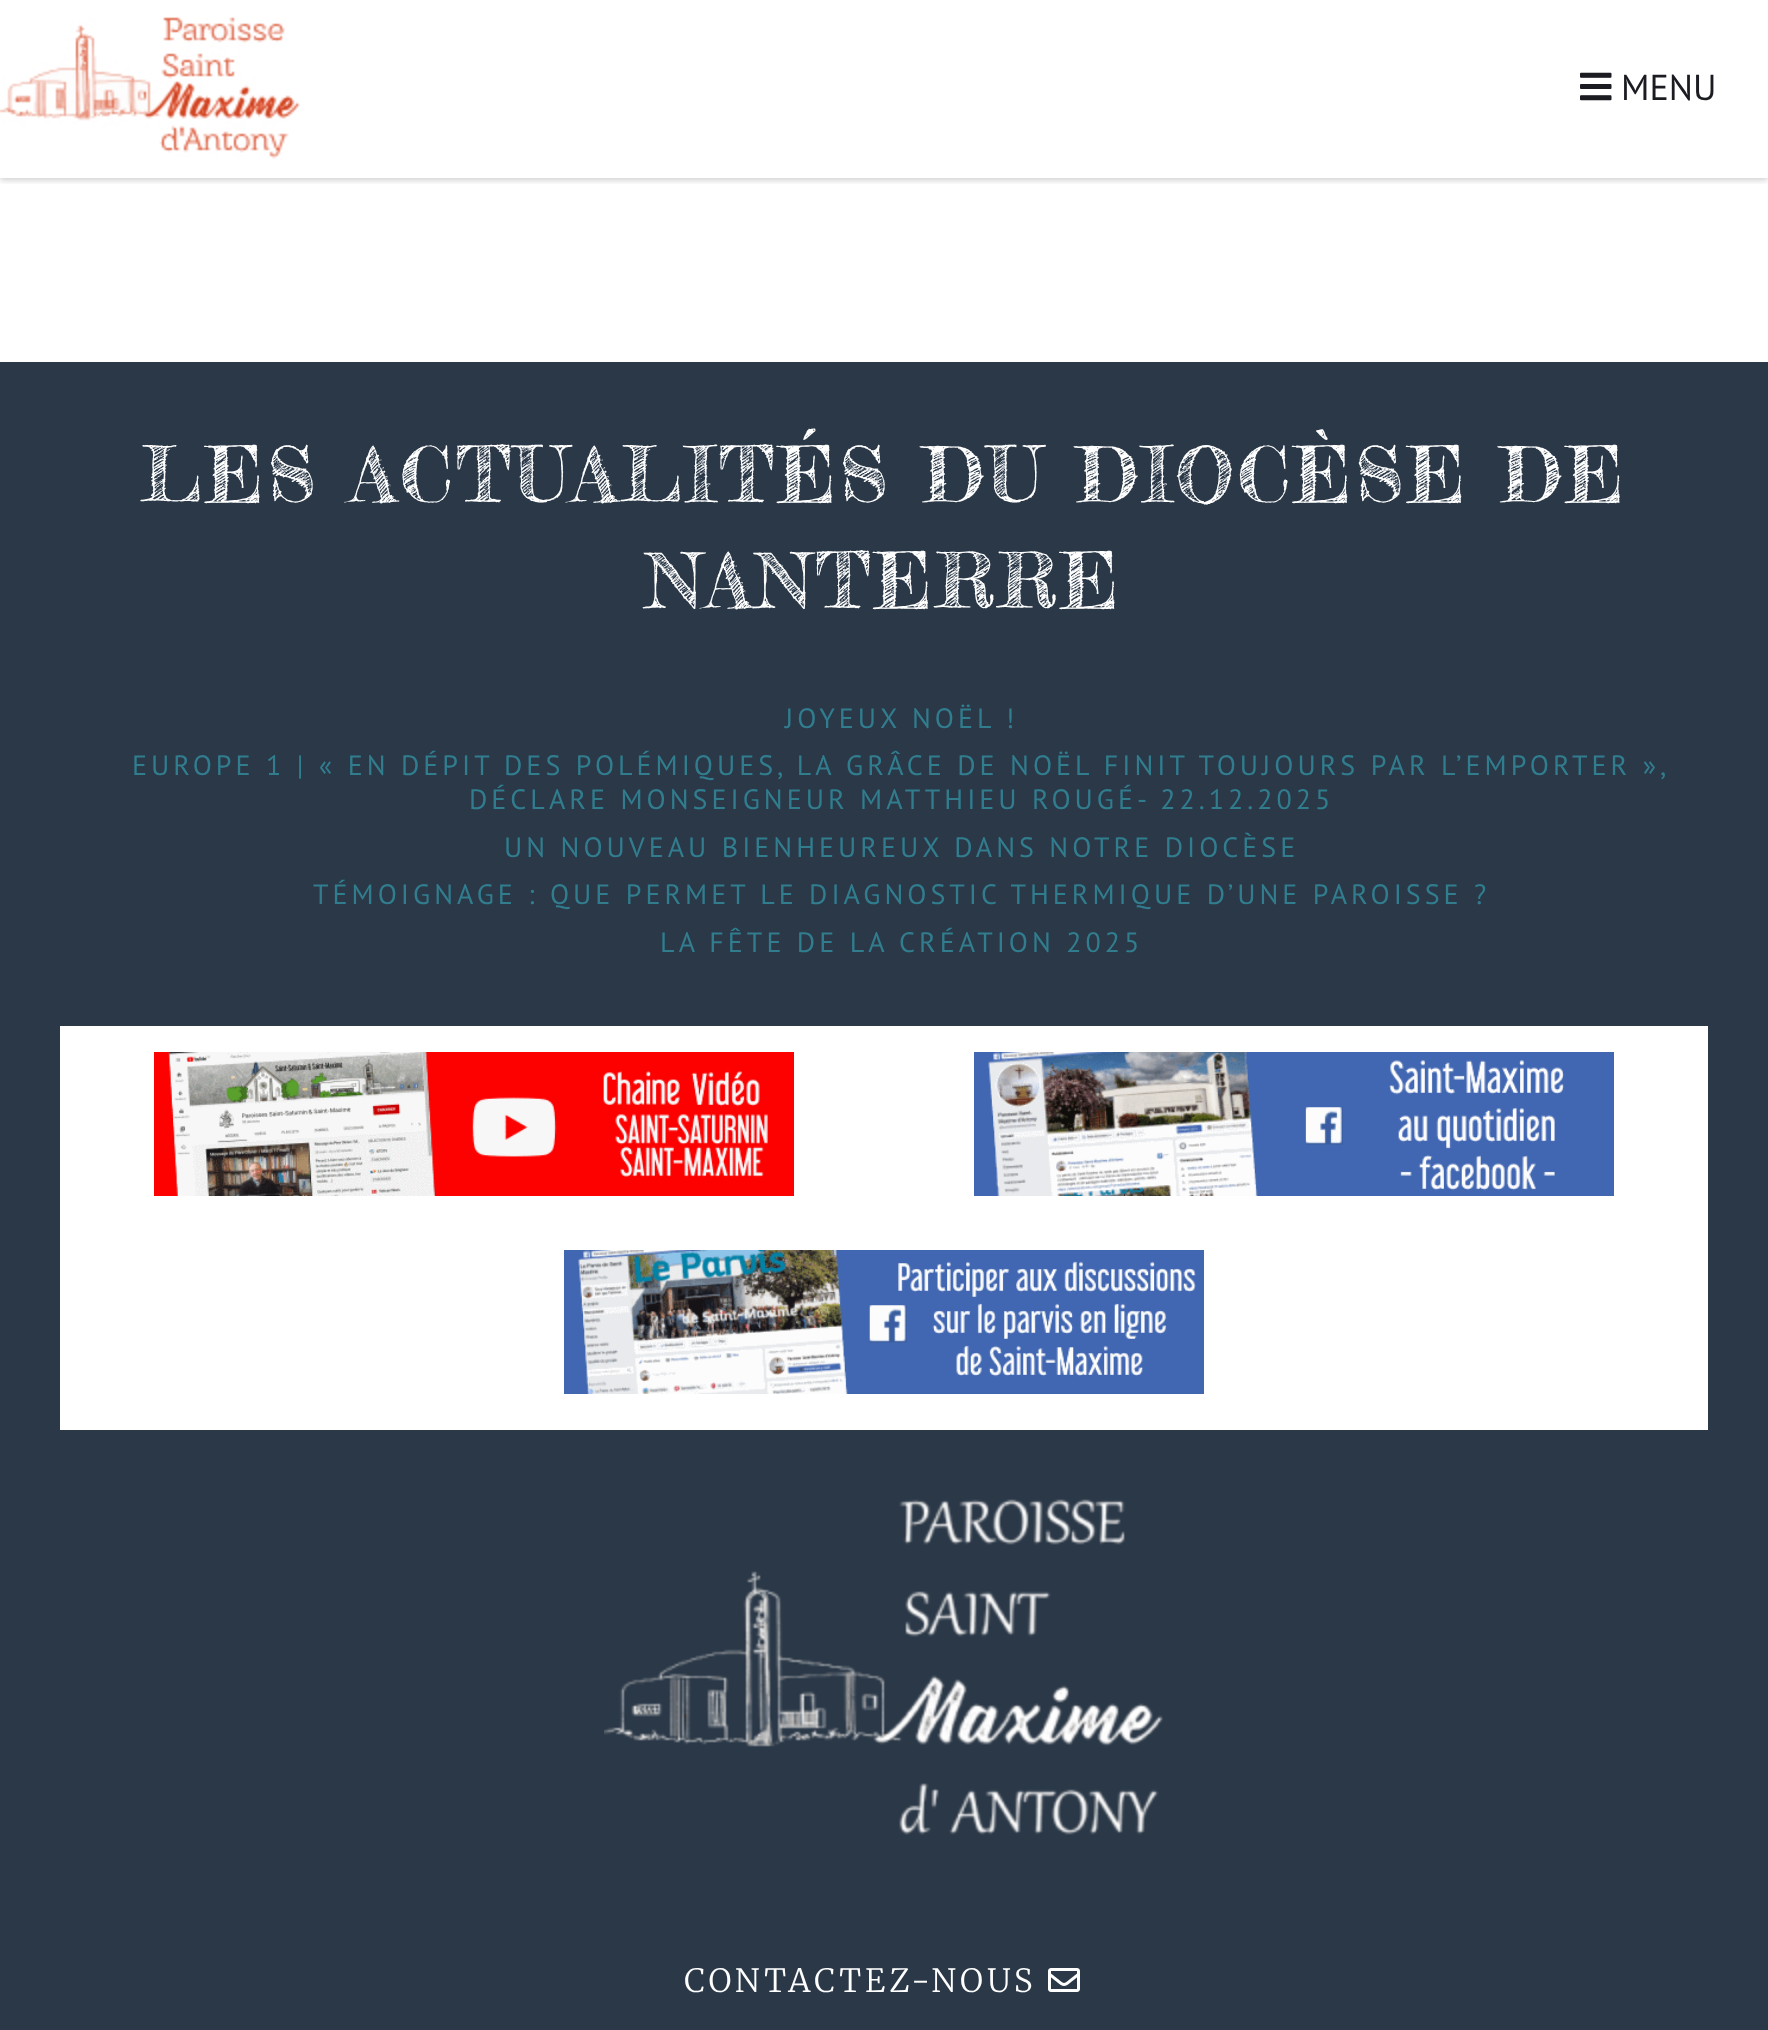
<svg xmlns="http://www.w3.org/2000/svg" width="1768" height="2030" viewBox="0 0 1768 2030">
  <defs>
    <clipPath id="clip1"><rect x="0" y="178" width="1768" height="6"/></clipPath>
  </defs>
  <rect width="100%" height="100%" fill="rgb(255,255,255)"/>
  <g clip-path="url(#clip1)">
    <rect x="0" y="2" width="1768" height="178" fill="rgba(0,0,0,0.2)" filter="blur(3px)"/>
  </g>
  <image x="0" y="17" width="300" height="142" href="pic1.png"/>
  <image x="1580" y="72" width="32" height="29" href="pic2.png"/>
  <text x="1621" y="100" font-family="PT Sans" font-size="36" fill="rgb(27,28,33)">MENU</text>
  <rect x="0" y="362" width="1768" height="1668" fill="rgb(42,56,72)"/>
  <g font-family="Fredericka the Great" font-size="76" letter-spacing="4" fill="rgb(255,255,255)">
    <text x="141" y="502">LES ACTUALITÉS DU DIOCÈSE DE</text>
    <text x="646" y="608">NANTERRE</text>
  </g>
  <g font-family="PT Sans" font-size="28" letter-spacing="4" fill="rgb(49,125,142)">
    <text x="785" y="728">JOYEUX NOËL !</text>
    <text x="132" y="775">EUROPE 1 | « EN DÉPIT DES POLÉMIQUES, LA GRÂCE DE NOËL FINIT TOUJOURS PAR L’EMPORTER »,</text>
    <text x="469" y="809">DÉCLARE MONSEIGNEUR MATTHIEU ROUGÉ- 22.12.2025</text>
    <text x="504" y="857">UN NOUVEAU BIENHEUREUX DANS NOTRE DIOCÈSE</text>
    <text x="313" y="904">TÉMOIGNAGE : QUE PERMET LE DIAGNOSTIC THERMIQUE D’UNE PAROISSE ?</text>
    <text x="660" y="952">LA FÊTE DE LA CRÉATION 2025</text>
  </g>
  <rect x="60" y="1026" width="1648" height="404" fill="rgb(255,255,255)"/>
  <image x="154" y="1052" width="640" height="144" href="pic3.png"/>
  <image x="974" y="1052" width="640" height="144" href="pic4.png"/>
  <image x="564" y="1250" width="640" height="144" href="pic5.png"/>
  <image x="604" y="1499" width="559" height="336" href="pic6.png"/>
  <text x="684" y="1992" font-family="Merriweather" font-size="32" font-weight="300" letter-spacing="4" fill="rgb(255,255,255)">CONTACTEZ-NOUS</text>
  <image x="1048" y="1968" width="32" height="24" href="pic7.png"/>
</svg>
